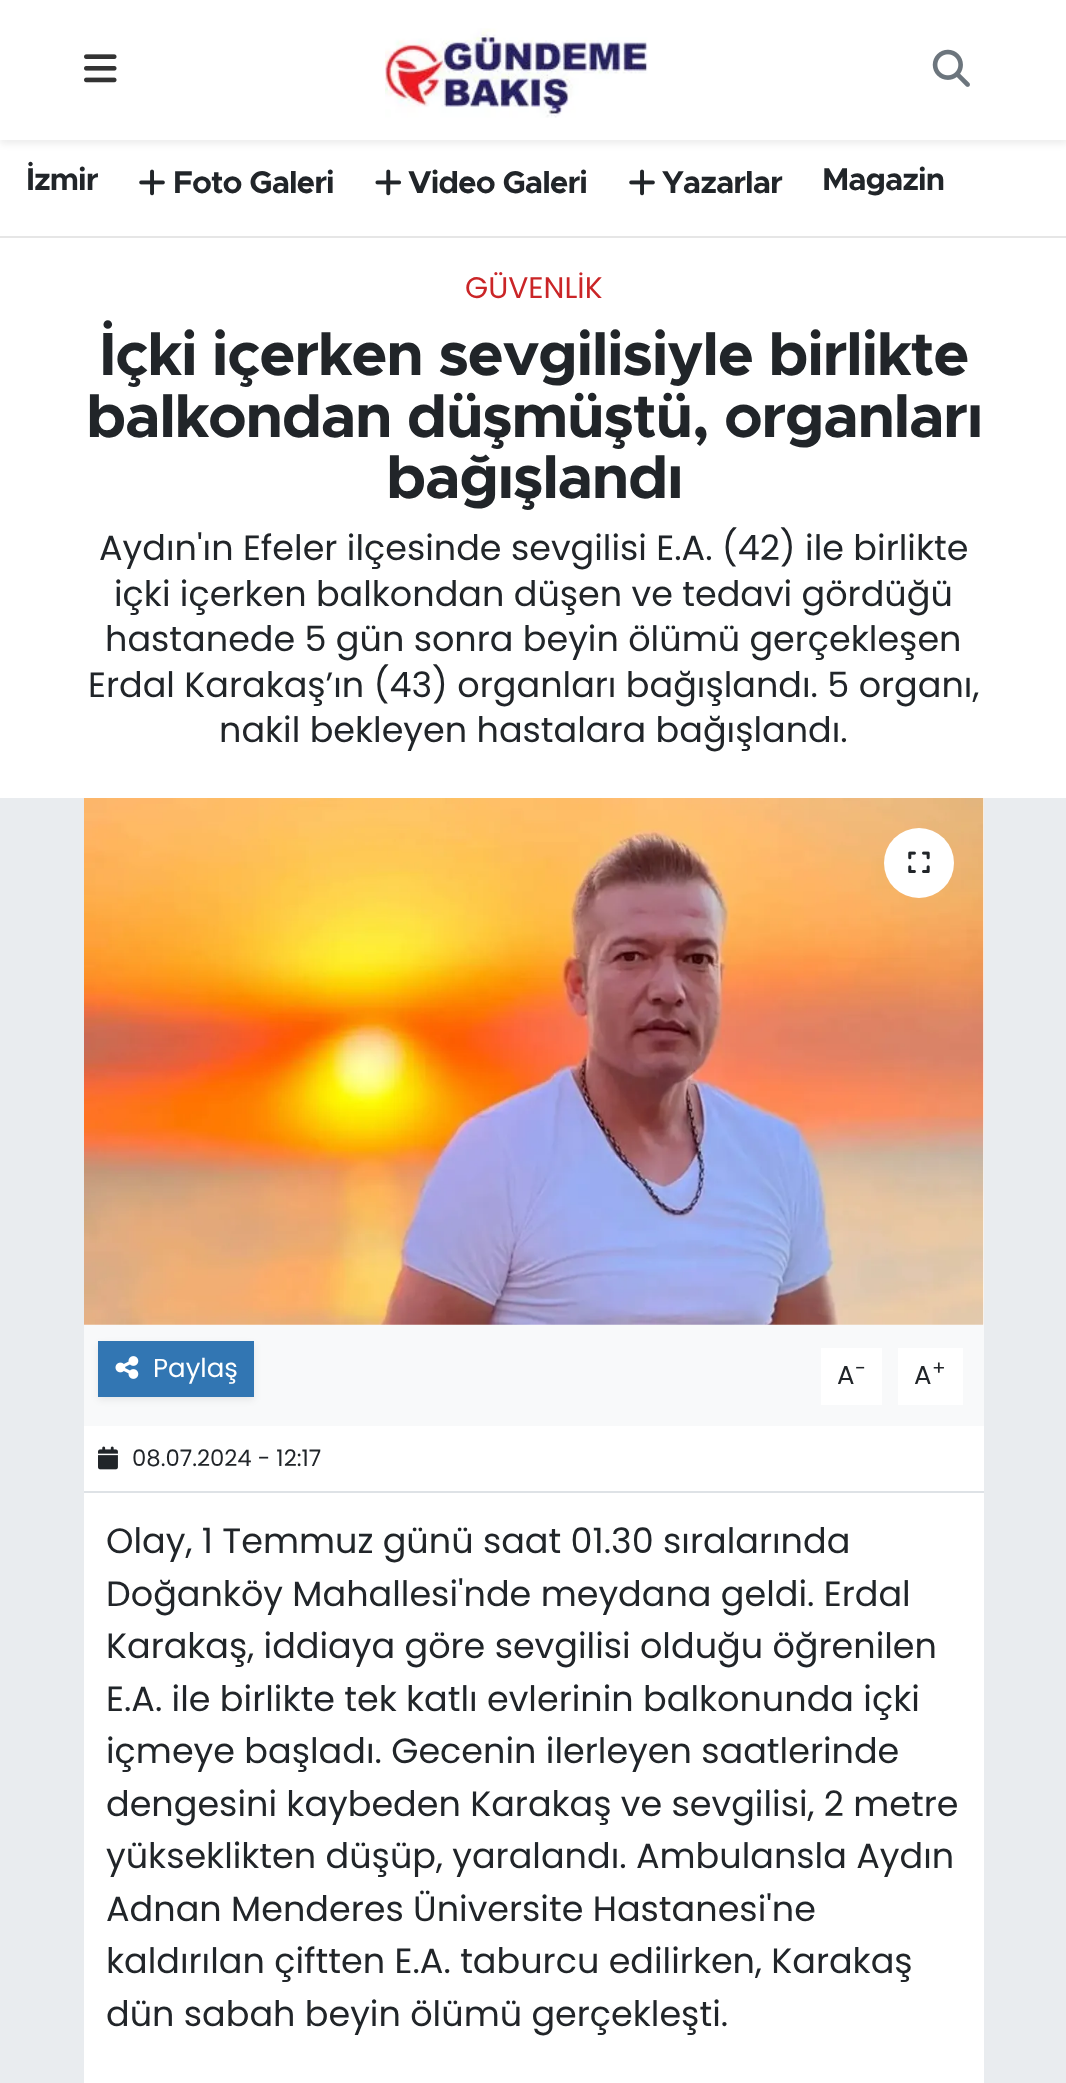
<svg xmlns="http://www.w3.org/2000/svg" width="1066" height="2083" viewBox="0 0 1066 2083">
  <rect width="100%" height="100%" fill="rgb(233,236,239)"/>
  <rect x="0" y="140" width="1066" height="96" fill="rgb(255,255,255)"/>
  <rect x="0" y="4" width="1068" height="140" fill="rgba(0,0,0,0.07)" filter="blur(3.5px)"/>
  <rect x="0" y="0" width="1066" height="140" fill="rgb(255,255,255)"/>
  <image x="84" y="54" width="33" height="29" href="pic1.png"/>
  <image x="385" y="28" width="263" height="90" href="pic2.png"/>
  <image x="932" y="49" width="38" height="38" href="pic3.png"/>
  <rect x="0" y="236" width="1066" height="2" fill="rgb(230,230,230)"/>
  <text x="26" y="190" font-family="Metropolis" font-size="31.5" font-weight="bold" letter-spacing="-1" fill="rgb(33,37,41)">İzmir</text>
  <image x="139" y="169" width="26" height="27" href="pic4.png"/>
  <text x="173" y="193" font-family="Metropolis" font-size="31.5" font-weight="bold" letter-spacing="-1" fill="rgb(33,37,41)">Foto Galeri</text>
  <image x="375" y="169" width="27" height="27" href="pic5.png"/>
  <text x="408" y="193" font-family="Metropolis" font-size="31.5" font-weight="bold" letter-spacing="-1" fill="rgb(33,37,41)">Video Galeri</text>
  <image x="629" y="169" width="26" height="27" href="pic4.png"/>
  <g font-family="Metropolis" font-size="31.5" font-weight="bold" letter-spacing="-1" fill="rgb(33,37,41)">
    <text x="662" y="193">Yazarlar</text>
    <text x="822" y="190">Magazin</text>
  </g>
  <rect x="0" y="238" width="1066" height="560" fill="rgb(255,255,255)"/>
  <text x="465" y="298" font-family="Poppins" font-size="29.75" fill="rgb(202,37,39)">GÜVENLİK</text>
  <g font-family="Metropolis" font-size="61.25" font-weight="bold" letter-spacing="-1.4" fill="rgb(33,37,41)">
    <text x="99" y="375">İçki içerken sevgilisiyle birlikte</text>
    <text x="86" y="437">balkondan düşmüştü, organları</text>
    <text x="386" y="498">bağışlandı</text>
  </g>
  <g font-family="Poppins" font-size="35" fill="rgb(33,37,41)">
    <text x="99" y="560">Aydın'ın Efeler ilçesinde sevgilisi E.A. (42) ile birlikte</text>
    <text x="114" y="606">içki içerken balkondan düşen ve tedavi gördüğü</text>
    <text x="105" y="651">hastanede 5 gün sonra beyin ölümü gerçekleşen</text>
    <text x="88" y="697">Erdal Karakaş’ın (43) organları bağışlandı. 5 organı,</text>
    <text x="219" y="742">nakil bekleyen hastalara bağışlandı.</text>
  </g>
  <rect x="84" y="798" width="900" height="1285" fill="rgb(255,255,255)"/>
  <image x="84" y="798" width="900" height="527" href="pic6.png"/>
  <circle cx="919" cy="863" r="35" fill="rgb(255,255,255)"/>
  <image x="908" y="851" width="22" height="22" href="pic7.png"/>
  <rect x="84" y="1325" width="900" height="101" fill="rgb(248,249,250)"/>
  <rect x="98" y="1344" width="156" height="56" fill="rgba(0,0,0,0.07)" filter="blur(3.5px)"/>
  <rect x="98" y="1341" width="156" height="56" fill="rgb(50,118,179)"/>
  <image x="115" y="1356" width="24" height="23" href="pic8.png"/>
  <text x="153" y="1377" font-family="Poppins" font-size="26" fill="rgb(255,255,255)">Paylaş</text>
  <rect x="821" y="1348" width="61" height="57" fill="rgb(255,255,255)"/>
  <text x="837" y="1384" font-family="Poppins" font-size="26" fill="rgb(33,37,41)">A</text>
  <text x="855" y="1375" font-family="Poppins" font-size="20" fill="rgb(33,37,41)">-</text>
  <rect x="898" y="1348" width="65" height="57" fill="rgb(255,255,255)"/>
  <text x="914" y="1384" font-family="Poppins" font-size="26" fill="rgb(33,37,41)">A</text>
  <text x="932" y="1375" font-family="Poppins" font-size="20" fill="rgb(33,37,41)">+</text>
  <rect x="84" y="1491" width="900" height="2" fill="rgb(222,226,230)"/>
  <image x="98" y="1446" width="20" height="24" href="pic9.png"/>
  <text x="132" y="1466" font-family="Poppins" font-size="22.75" fill="rgb(33,37,41)">08.07.2024 - 12:17</text>
  <g font-family="Poppins" font-size="35" fill="rgb(33,37,41)">
    <text>
      <tspan x="106" y="1553">Olay, 1 Temmuz günü saat 01.30 sıralarında</tspan>
      <tspan x="106" y="1606">Doğanköy Mahallesi'nde meydana geldi. Erdal</tspan>
      <tspan x="106" y="1658">Karakaş, iddiaya göre sevgilisi olduğu öğrenilen</tspan>
      <tspan x="106" y="1711">E.A. ile birlikte tek katlı evlerinin balkonunda içki</tspan>
      <tspan x="106" y="1763">içmeye başladı. Gecenin ilerleyen saatlerinde</tspan>
      <tspan x="106" y="1816">dengesini kaybeden Karakaş ve sevgilisi, 2 metre</tspan>
      <tspan x="106" y="1868">yükseklikten düşüp, yaralandı. Ambulansla Aydın</tspan>
      <tspan x="106" y="1921">Adnan Menderes Üniversite Hastanesi'ne</tspan>
      <tspan x="106" y="1973">kaldırılan çiftten E.A. taburcu edilirken, Karakaş</tspan>
      <tspan x="106" y="2026">dün sabah beyin ölümü gerçekleşti.</tspan>
    </text>
  </g>
</svg>
